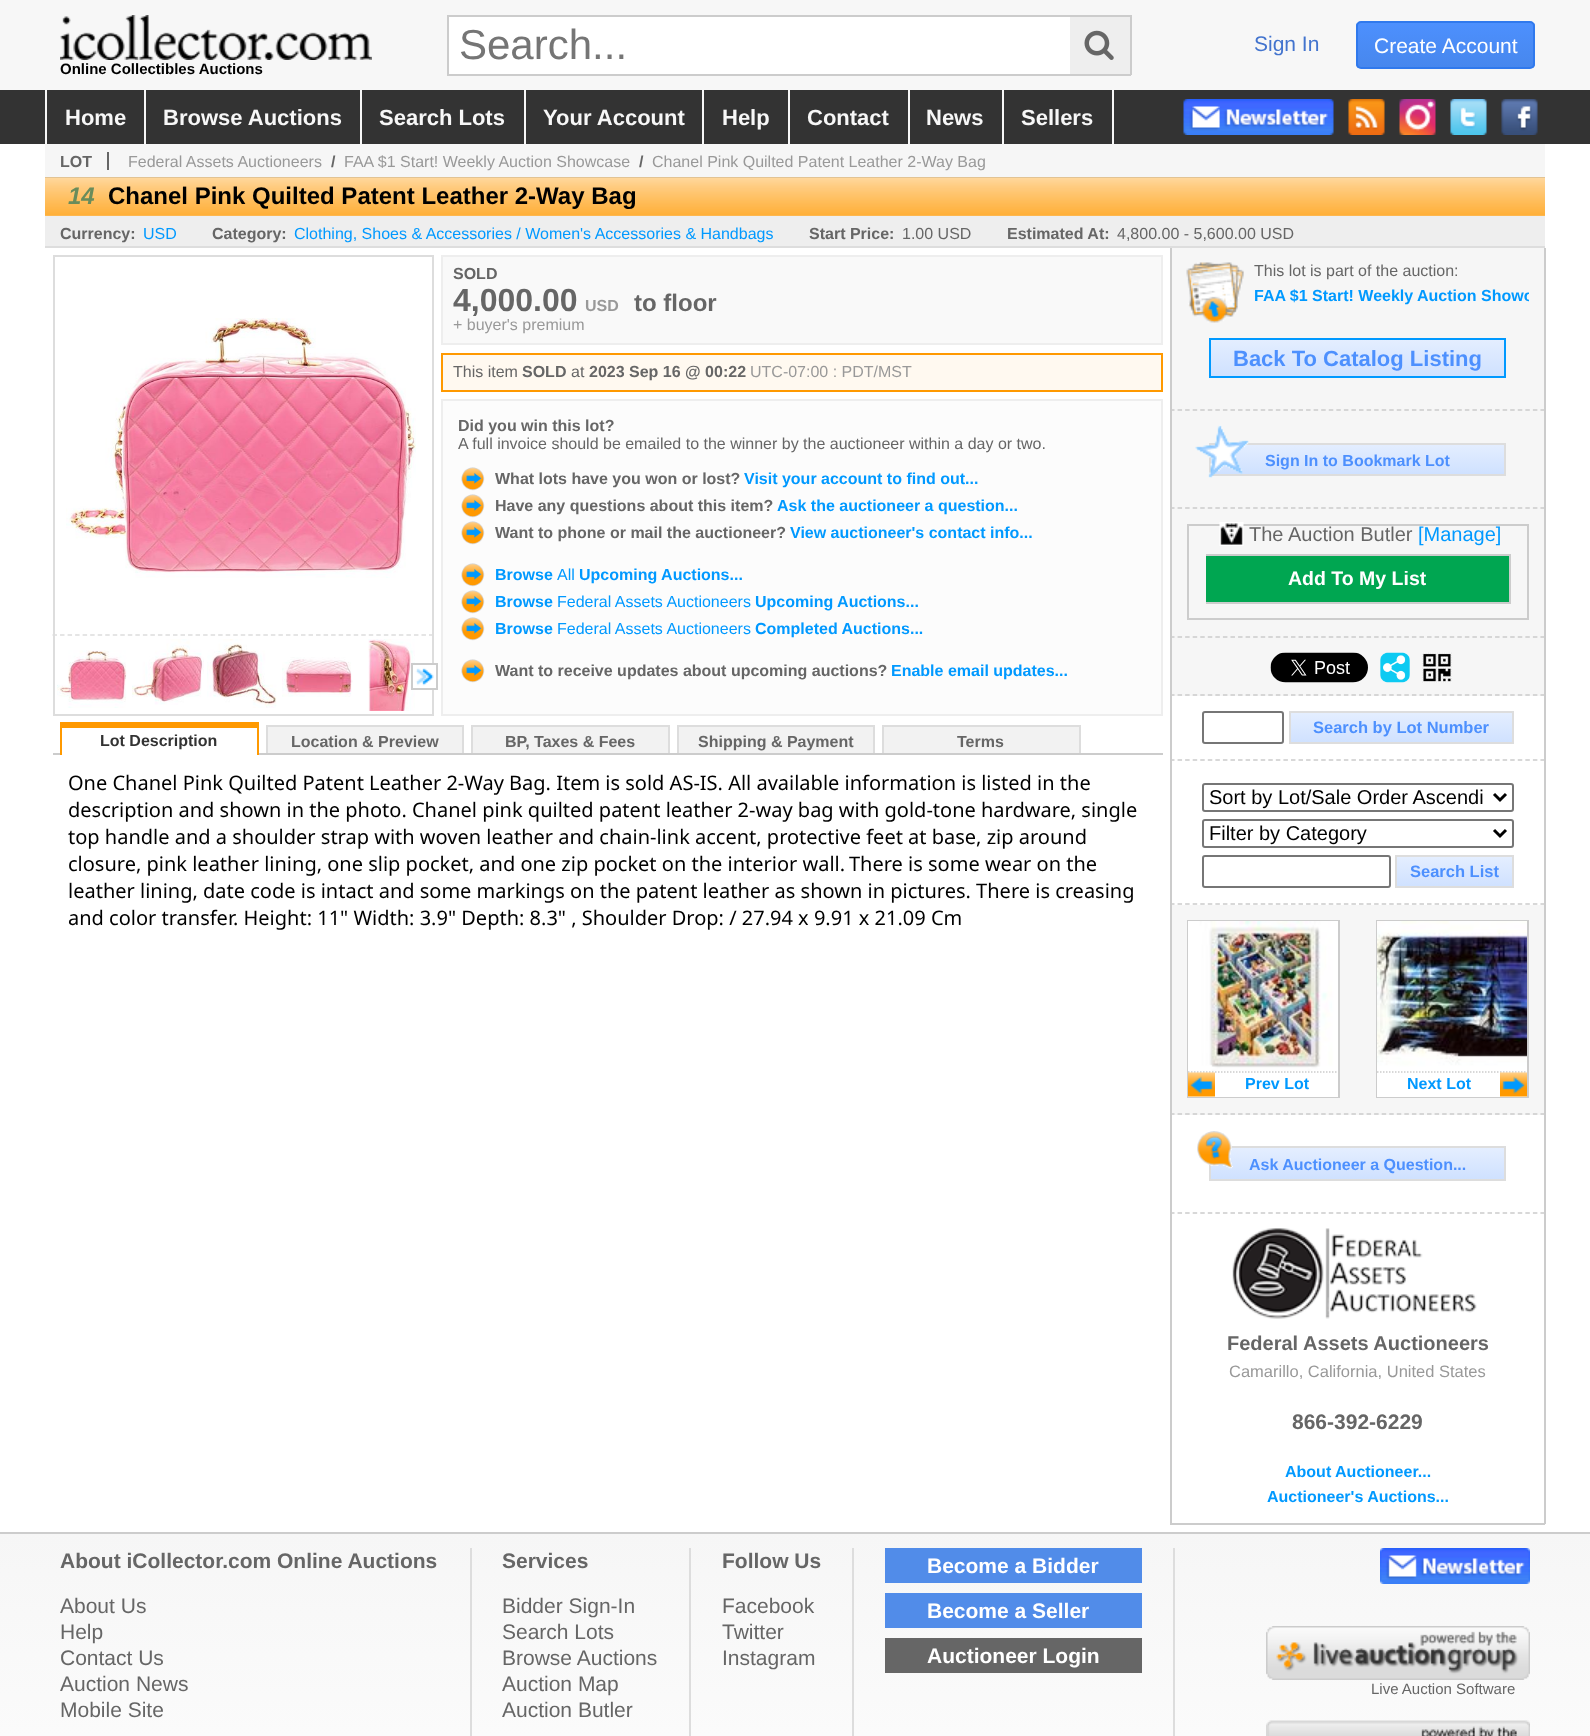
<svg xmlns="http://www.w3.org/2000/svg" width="1590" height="1736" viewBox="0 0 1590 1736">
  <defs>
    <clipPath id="clip1"><rect x="1356" y="21" width="179" height="48" rx="5"/></clipPath>
    <linearGradient id="g1" gradientUnits="userSpaceOnUse" x1="1445" y1="22" x2="1445" y2="68"><stop offset="0" stop-color="rgb(77,144,254)"/><stop offset="1" stop-color="rgb(71,135,237)"/></linearGradient>
    <clipPath id="clip2"><rect x="1254" y="288" width="275" height="17"/></clipPath>
    <linearGradient id="g2" gradientUnits="userSpaceOnUse" x1="1358" y1="339" x2="1358" y2="377"><stop offset="0" stop-color="rgb(228,238,255)"/><stop offset="1" stop-color="rgb(207,225,255)"/></linearGradient>
    <linearGradient id="g3" gradientUnits="userSpaceOnUse" x1="1358" y1="444" x2="1358" y2="474"><stop offset="0" stop-color="rgb(228,238,255)"/><stop offset="1" stop-color="rgb(207,225,255)"/></linearGradient>
    <linearGradient id="g4" gradientUnits="userSpaceOnUse" x1="1401" y1="713" x2="1401" y2="743"><stop offset="0" stop-color="rgb(228,238,255)"/><stop offset="1" stop-color="rgb(207,225,255)"/></linearGradient>
    <linearGradient id="g5" gradientUnits="userSpaceOnUse" x1="1454" y1="857" x2="1454" y2="887"><stop offset="0" stop-color="rgb(228,238,255)"/><stop offset="1" stop-color="rgb(207,225,255)"/></linearGradient>
    <linearGradient id="g6" gradientUnits="userSpaceOnUse" x1="1358" y1="1148" x2="1358" y2="1179"><stop offset="0" stop-color="rgb(228,238,255)"/><stop offset="1" stop-color="rgb(207,225,255)"/></linearGradient>
    <linearGradient id="g7" gradientUnits="userSpaceOnUse" x1="795" y1="1533" x2="795" y2="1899"><stop offset="0" stop-color="rgb(246,246,246)"/><stop offset="1" stop-color="rgb(255,255,255)"/></linearGradient>
  </defs>
  <rect width="100%" height="100%" fill="rgb(255,255,255)"/>
  <rect x="0" y="0" width="1590" height="90" fill="rgb(247,247,247)"/>
  <rect x="449" y="17" width="621" height="57" fill="rgb(255,255,255)"/>
  <rect x="447" y="15" width="684" height="2" fill="rgb(204,204,204)"/>
  <rect x="447" y="74" width="623" height="2" fill="rgb(204,204,204)"/>
  <rect x="447" y="15" width="2" height="60" fill="rgb(204,204,204)"/>
  <text x="459" y="59" font-family="Liberation Sans" font-size="42" fill="rgb(117,117,117)">Search...</text>
  <rect x="1070" y="17" width="60" height="57" fill="rgb(238,238,238)"/>
  <rect x="1130" y="15" width="2" height="60" fill="rgb(204,204,204)"/>
  <rect x="1070" y="74" width="61" height="2" fill="rgb(204,204,204)"/>
  <image x="1084" y="30" width="30" height="30" href="pic1.png"/>
  <text x="1254" y="51" font-family="Liberation Sans" font-size="21" fill="rgb(67,116,206)">Sign In</text>
  <g clip-path="url(#clip1)">
    <rect x="1356" y="23" width="179" height="45" fill="url(#g1)"/>
  </g>
  <rect x="1357" y="22" width="177" height="46" rx="4" fill="none" stroke="rgb(48,121,237)" stroke-width="2"/>
  <text x="1374" y="53" font-family="Liberation Sans" font-size="21" fill="rgb(255,255,255)">Create Account</text>
  <image x="60" y="15" width="312" height="45" href="pic2.png"/>
  <text x="60" y="74" font-family="Liberation Sans" font-size="15" font-weight="bold" fill="rgb(0,0,0)">Online Collectibles Auctions</text>
  <rect x="0" y="90" width="1590" height="54" fill="rgb(51,51,51)"/>
  <rect x="45" y="90" width="2" height="54" fill="rgb(247,247,247)"/>
  <text x="65" y="125" font-family="Liberation Sans" font-size="22" font-weight="bold" fill="rgb(247,247,247)">Home</text>
  <rect x="144" y="90" width="2" height="54" fill="rgb(247,247,247)"/>
  <text x="163" y="125" font-family="Liberation Sans" font-size="22" font-weight="bold" fill="rgb(247,247,247)">Browse Auctions</text>
  <rect x="360" y="90" width="2" height="54" fill="rgb(247,247,247)"/>
  <text x="379" y="125" font-family="Liberation Sans" font-size="22" font-weight="bold" fill="rgb(247,247,247)">Search Lots</text>
  <rect x="524" y="90" width="2" height="54" fill="rgb(247,247,247)"/>
  <text x="543" y="125" font-family="Liberation Sans" font-size="22" font-weight="bold" fill="rgb(247,247,247)">Your Account</text>
  <rect x="702" y="90" width="2" height="54" fill="rgb(247,247,247)"/>
  <text x="722" y="125" font-family="Liberation Sans" font-size="22" font-weight="bold" fill="rgb(247,247,247)">Help</text>
  <rect x="788" y="90" width="2" height="54" fill="rgb(247,247,247)"/>
  <text x="807" y="125" font-family="Liberation Sans" font-size="22" font-weight="bold" fill="rgb(247,247,247)">Contact</text>
  <rect x="908" y="90" width="2" height="54" fill="rgb(247,247,247)"/>
  <text x="926" y="125" font-family="Liberation Sans" font-size="22" font-weight="bold" fill="rgb(247,247,247)">News</text>
  <rect x="1112" y="90" width="2" height="54" fill="rgb(247,247,247)"/>
  <rect x="1002" y="90" width="2" height="54" fill="rgb(247,247,247)"/>
  <text x="1021" y="125" font-family="Liberation Sans" font-size="22" font-weight="bold" fill="rgb(247,247,247)">Sellers</text>
  <image x="1183" y="99" width="151" height="36" href="pic3.png"/>
  <image x="1348" y="99" width="37" height="36" href="pic4.png"/>
  <image x="1399" y="99" width="37" height="36" href="pic5.png"/>
  <image x="1450" y="99" width="37" height="36" href="pic6.png"/>
  <image x="1501" y="99" width="37" height="36" href="pic7.png"/>
  <rect x="45" y="144" width="1500" height="33" fill="rgb(246,246,246)"/>
  <text x="60" y="167" font-family="Liberation Sans" font-size="16" font-weight="bold" fill="rgb(102,102,102)">LOT</text>
  <rect x="107" y="152" width="2" height="18" fill="rgb(102,102,102)"/>
  <text x="128" y="167" font-family="Liberation Sans" font-size="16" fill="rgb(153,153,153)">Federal Assets Auctioneers</text>
  <text x="331" y="167" font-family="Liberation Sans" font-size="16" font-weight="bold" fill="rgb(102,102,102)">/</text>
  <text x="344" y="167" font-family="Liberation Sans" font-size="16" fill="rgb(153,153,153)">FAA $1 Start! Weekly Auction Showcase</text>
  <text x="639" y="167" font-family="Liberation Sans" font-size="16" font-weight="bold" fill="rgb(102,102,102)">/</text>
  <text x="652" y="167" font-family="Liberation Sans" font-size="16" fill="rgb(153,153,153)">Chanel Pink Quilted Patent Leather 2-Way Bag</text>
  <image x="45" y="177" width="1500" height="39" href="pic8.png"/>
  <text x="68" y="204" font-family="Liberation Sans" font-size="24" font-weight="bold" font-style="italic" fill="rgb(105,140,91)">14</text>
  <text x="108" y="204" font-family="Liberation Sans" font-size="24" font-weight="bold" fill="rgb(0,0,0)">Chanel Pink Quilted Patent Leather 2-Way Bag</text>
  <rect x="45" y="216" width="1500" height="30" fill="rgb(238,238,238)"/>
  <rect x="45" y="246" width="1500" height="2" fill="rgb(221,221,221)"/>
  <text x="60" y="239" font-family="Liberation Sans" font-size="16" font-weight="bold" fill="rgb(102,102,102)">Currency:</text>
  <text x="143" y="239" font-family="Liberation Sans" font-size="16" fill="rgb(0,153,255)">USD</text>
  <text x="212" y="239" font-family="Liberation Sans" font-size="16" font-weight="bold" fill="rgb(102,102,102)">Category:</text>
  <text x="294" y="239" font-family="Liberation Sans" font-size="16" fill="rgb(0,153,255)">Clothing, Shoes &amp; Accessories / Women's Accessories &amp; Handbags</text>
  <text x="809" y="239" font-family="Liberation Sans" font-size="16" font-weight="bold" fill="rgb(102,102,102)">Start Price:</text>
  <text x="902" y="239" font-family="Liberation Sans" font-size="16" fill="rgb(102,102,102)">1.00 USD</text>
  <text x="1007" y="239" font-family="Liberation Sans" font-size="16" font-weight="bold" fill="rgb(102,102,102)">Estimated At:</text>
  <text x="1117" y="239" font-family="Liberation Sans" font-size="16" fill="rgb(102,102,102)">4,800.00 - 5,600.00 USD</text>
  <rect x="53" y="255" width="381" height="2" fill="rgb(221,221,221)"/>
  <rect x="432" y="255" width="2" height="380" fill="rgb(221,221,221)"/>
  <rect x="53" y="255" width="2" height="380" fill="rgb(221,221,221)"/>
  <image x="66" y="318" width="350" height="260" href="pic9.png"/>
  <path d="M52.5 635H433.5" fill="none" stroke="rgb(221,221,221)" stroke-width="1.5" stroke-dasharray="4.5 3.03"/>
  <rect x="432" y="635" width="2" height="81" fill="rgb(221,221,221)"/>
  <rect x="53" y="714" width="381" height="2" fill="rgb(221,221,221)"/>
  <rect x="53" y="635" width="2" height="81" fill="rgb(221,221,221)"/>
  <image x="57" y="650" width="70" height="58" href="pic10.png"/>
  <image x="132" y="639" width="72" height="66" href="pic11.png"/>
  <image x="207" y="639" width="70" height="69" href="pic12.png"/>
  <image x="282" y="657" width="71" height="40" href="pic13.png"/>
  <image x="368" y="639" width="47" height="72" href="pic14.png"/>
  <image x="413" y="665" width="21" height="23" href="pic15.png"/>
  <rect x="412" y="664" width="25" height="25" fill="none" stroke="rgb(204,204,204)" stroke-width="2"/>
  <rect x="442" y="256" width="720" height="88" fill="rgb(249,249,249)" stroke="rgb(238,238,238)" stroke-width="2"/>
  <text x="453" y="279" font-family="Liberation Sans" font-size="16" font-weight="bold" fill="rgb(102,102,102)">SOLD</text>
  <text x="453" y="311" font-family="Liberation Sans" font-size="32" font-weight="bold" fill="rgb(102,102,102)">4,000.00</text>
  <text x="585" y="311" font-family="Liberation Sans" font-size="16" font-weight="bold" fill="rgb(153,153,153)">USD</text>
  <text x="634" y="311" font-family="Liberation Sans" font-size="24" font-weight="bold" fill="rgb(102,102,102)">to floor</text>
  <text x="453" y="330" font-family="Liberation Sans" font-size="16" fill="rgb(153,153,153)">+ buyer's premium</text>
  <rect x="442" y="354" width="720" height="37" fill="rgb(255,249,240)" stroke="rgb(255,153,0)" stroke-width="2"/>
  <text x="453" y="377" font-family="Liberation Sans" font-size="16" fill="rgb(102,102,102)">This item</text>
  <text x="522" y="377" font-family="Liberation Sans" font-size="16" font-weight="bold" fill="rgb(102,102,102)">SOLD</text>
  <text x="571" y="377" font-family="Liberation Sans" font-size="16" fill="rgb(102,102,102)">at</text>
  <text x="589" y="377" font-family="Liberation Sans" font-size="16" font-weight="bold" fill="rgb(102,102,102)">2023 Sep 16 @ 00:22</text>
  <text x="750" y="377" font-family="Liberation Sans" font-size="16" fill="rgb(153,153,153)">UTC-07:00 : PDT/MST</text>
  <rect x="442" y="400" width="720" height="315" fill="rgb(252,252,252)" stroke="rgb(238,238,238)" stroke-width="2"/>
  <text x="458" y="431" font-family="Liberation Sans" font-size="16" font-weight="bold" fill="rgb(102,102,102)">Did you win this lot?</text>
  <text x="458" y="449" font-family="Liberation Sans" font-size="16" fill="rgb(102,102,102)">A full invoice should be emailed to the winner by the auctioneer within a day or two.</text>
  <image x="461" y="467" width="24" height="24" href="pic16.png"/>
  <text x="495" y="484" font-family="Liberation Sans" font-size="16" font-weight="bold" fill="rgb(102,102,102)">What lots have you won or lost?</text>
  <text x="744" y="484" font-family="Liberation Sans" font-size="16" font-weight="bold" fill="rgb(0,153,255)">Visit your account to find out...</text>
  <image x="461" y="494" width="24" height="24" href="pic16.png"/>
  <text x="495" y="511" font-family="Liberation Sans" font-size="16" font-weight="bold" fill="rgb(102,102,102)">Have any questions about this item?</text>
  <text x="777" y="511" font-family="Liberation Sans" font-size="16" font-weight="bold" fill="rgb(0,153,255)">Ask the auctioneer a question...</text>
  <image x="461" y="521" width="24" height="24" href="pic16.png"/>
  <text x="495" y="538" font-family="Liberation Sans" font-size="16" font-weight="bold" fill="rgb(102,102,102)">Want to phone or mail the auctioneer?</text>
  <text x="790" y="538" font-family="Liberation Sans" font-size="16" font-weight="bold" fill="rgb(0,153,255)">View auctioneer's contact info...</text>
  <image x="461" y="563" width="24" height="24" href="pic16.png"/>
  <text x="495" y="580" font-family="Liberation Sans" font-size="16" font-weight="bold" fill="rgb(0,153,255)">Browse</text>
  <text x="557" y="580" font-family="Liberation Sans" font-size="16" fill="rgb(0,153,255)">All</text>
  <text x="579" y="580" font-family="Liberation Sans" font-size="16" font-weight="bold" fill="rgb(0,153,255)">Upcoming Auctions...</text>
  <image x="461" y="590" width="24" height="24" href="pic16.png"/>
  <text x="495" y="607" font-family="Liberation Sans" font-size="16" font-weight="bold" fill="rgb(0,153,255)">Browse</text>
  <text x="557" y="607" font-family="Liberation Sans" font-size="16" fill="rgb(0,153,255)">Federal Assets Auctioneers</text>
  <text x="755" y="607" font-family="Liberation Sans" font-size="16" font-weight="bold" fill="rgb(0,153,255)">Upcoming Auctions...</text>
  <image x="461" y="617" width="24" height="24" href="pic16.png"/>
  <text x="495" y="634" font-family="Liberation Sans" font-size="16" font-weight="bold" fill="rgb(0,153,255)">Browse</text>
  <text x="557" y="634" font-family="Liberation Sans" font-size="16" fill="rgb(0,153,255)">Federal Assets Auctioneers</text>
  <text x="755" y="634" font-family="Liberation Sans" font-size="16" font-weight="bold" fill="rgb(0,153,255)">Completed Auctions...</text>
  <image x="461" y="659" width="24" height="24" href="pic16.png"/>
  <text x="495" y="676" font-family="Liberation Sans" font-size="16" font-weight="bold" fill="rgb(102,102,102)">Want to receive updates about upcoming auctions?</text>
  <text x="891" y="676" font-family="Liberation Sans" font-size="16" font-weight="bold" fill="rgb(0,153,255)">Enable email updates...</text>
  <rect x="53" y="753" width="1110" height="2" fill="rgb(204,204,204)"/>
  <rect x="62" y="753" width="195" height="2" fill="rgb(255,255,255)"/>
  <rect x="60" y="722" width="198" height="6" fill="rgb(255,153,0)"/>
  <rect x="257" y="722" width="2" height="33" fill="rgb(255,153,0)"/>
  <rect x="60" y="722" width="2" height="33" fill="rgb(255,153,0)"/>
  <text x="100" y="746" font-family="Liberation Sans" font-size="16" font-weight="bold" fill="rgb(51,51,51)">Lot Description</text>
  <rect x="268" y="727" width="194" height="26" fill="rgb(242,242,242)"/>
  <rect x="266" y="725" width="198" height="2" fill="rgb(221,221,221)"/>
  <rect x="462" y="725" width="2" height="28" fill="rgb(221,221,221)"/>
  <rect x="266" y="725" width="2" height="28" fill="rgb(221,221,221)"/>
  <text x="291" y="747" font-family="Liberation Sans" font-size="16" font-weight="bold" fill="rgb(102,102,102)">Location &amp; Preview</text>
  <rect x="473" y="727" width="195" height="26" fill="rgb(242,242,242)"/>
  <rect x="471" y="725" width="198" height="2" fill="rgb(221,221,221)"/>
  <rect x="668" y="725" width="2" height="28" fill="rgb(221,221,221)"/>
  <rect x="471" y="725" width="2" height="28" fill="rgb(221,221,221)"/>
  <text x="505" y="747" font-family="Liberation Sans" font-size="16" font-weight="bold" fill="rgb(102,102,102)">BP, Taxes &amp; Fees</text>
  <rect x="679" y="727" width="194" height="26" fill="rgb(242,242,242)"/>
  <rect x="677" y="725" width="198" height="2" fill="rgb(221,221,221)"/>
  <rect x="873" y="725" width="2" height="28" fill="rgb(221,221,221)"/>
  <rect x="677" y="725" width="2" height="28" fill="rgb(221,221,221)"/>
  <text x="698" y="747" font-family="Liberation Sans" font-size="16" font-weight="bold" fill="rgb(102,102,102)">Shipping &amp; Payment</text>
  <rect x="884" y="727" width="195" height="26" fill="rgb(242,242,242)"/>
  <rect x="882" y="725" width="198" height="2" fill="rgb(221,221,221)"/>
  <rect x="1079" y="725" width="2" height="28" fill="rgb(221,221,221)"/>
  <rect x="882" y="725" width="2" height="28" fill="rgb(221,221,221)"/>
  <text x="957" y="747" font-family="Liberation Sans" font-size="16" font-weight="bold" fill="rgb(102,102,102)">Terms</text>
  <g font-family="Noto Sans" font-size="20" fill="rgb(0,0,0)">
    <text>
      <tspan x="68" y="790">One Chanel Pink Quilted Patent Leather 2-Way Bag. Item is sold AS-IS. All available information is listed in the</tspan>
      <tspan x="68" y="817">description and shown in the photo. Chanel pink quilted patent leather 2-way bag with gold-tone hardware, single</tspan>
      <tspan x="68" y="844">top handle and a shoulder strap with woven leather and chain-link accent, protective feet at base, zip around</tspan>
      <tspan x="68" y="871">closure, pink leather lining, one slip pocket, and one zip pocket on the interior wall.</tspan>
    </text>
    <text x="849" y="871">There is some wear on the</text>
    <text>
      <tspan x="68" y="898">leather lining, date code is intact and some markings on the patent leather as shown in pictures. There is creasing</tspan>
      <tspan x="68" y="925">and color transfer. Height: 11" Width: 3.9" Depth: 8.3" , Shoulder Drop: / 27.94 x 9.91 x 21.09 Cm</tspan>
    </text>
  </g>
  <rect x="1172" y="248" width="372" height="448" fill="rgb(246,246,246)"/>
  <rect x="1544" y="248" width="2" height="1276" fill="rgb(204,204,204)"/>
  <path d="M1170 410H1545" fill="none" stroke="rgb(204,204,204)" stroke-width="1.5" stroke-dasharray="4.5 3.06"/>
  <rect x="1170" y="248" width="2" height="163" fill="rgb(204,204,204)"/>
  <image x="1186" y="262" width="58" height="61" href="pic17.png"/>
  <text x="1254" y="276" font-family="Liberation Sans" font-size="16" fill="rgb(102,102,102)">This lot is part of the auction:</text>
  <g clip-path="url(#clip2)">
    <text x="1254" y="301" font-family="Liberation Sans" font-size="16" font-weight="bold" fill="rgb(0,153,255)">FAA $1 Start! Weekly Auction Showc</text>
  </g>
  <rect x="1211" y="340" width="293" height="36" fill="url(#g2)"/>
  <rect x="1210" y="339" width="295" height="38" fill="none" stroke="rgb(0,153,255)" stroke-width="2"/>
  <text x="1233" y="366" font-family="Liberation Sans" font-size="22" font-weight="bold" fill="rgb(77,144,254)">Back To Catalog Listing</text>
  <path d="M1170 508H1545" fill="none" stroke="rgb(204,204,204)" stroke-width="1.5" stroke-dasharray="4.5 3.06"/>
  <rect x="1170" y="411" width="2" height="98" fill="rgb(204,204,204)"/>
  <rect x="1211" y="445" width="293" height="29" fill="url(#g3)"/>
  <rect x="1210" y="444" width="295" height="31" fill="none" stroke="rgb(221,221,221)" stroke-width="2"/>
  <image x="1195" y="425" width="54" height="53" href="pic18.png"/>
  <text x="1265" y="466" font-family="Liberation Sans" font-size="16" font-weight="bold" fill="rgb(77,144,254)">Sign In to Bookmark Lot</text>
  <path d="M1170 637H1545" fill="none" stroke="rgb(204,204,204)" stroke-width="1.5" stroke-dasharray="4.5 3.06"/>
  <rect x="1170" y="509" width="2" height="129" fill="rgb(204,204,204)"/>
  <rect x="1188" y="525" width="340" height="94" fill="none" stroke="rgb(204,204,204)" stroke-width="2"/>
  <image x="1219" y="522" width="25" height="24" href="pic19.png"/>
  <text x="1249" y="541" font-family="Liberation Sans" font-size="20" fill="rgb(102,102,102)">The Auction Butler</text>
  <text x="1418" y="541" font-family="Liberation Sans" font-size="20" fill="rgb(0,153,255)">[Manage]</text>
  <rect x="1206" y="556" width="303" height="46" fill="rgb(0,166,81)"/>
  <rect x="1206" y="554" width="305" height="2" fill="rgb(204,204,204)"/>
  <rect x="1509" y="554" width="2" height="49" fill="rgb(204,204,204)"/>
  <rect x="1206" y="602" width="305" height="2" fill="rgb(204,204,204)"/>
  <text x="1288" y="585" font-family="Liberation Sans" font-size="19.5" font-weight="bold" fill="rgb(255,255,255)">Add To My List</text>
  <path d="M1170 695H1545" fill="none" stroke="rgb(204,204,204)" stroke-width="1.5" stroke-dasharray="4.5 3.06"/>
  <rect x="1170" y="638" width="2" height="58" fill="rgb(204,204,204)"/>
  <image x="1270" y="652" width="98" height="31" href="pic20.png"/>
  <image x="1380" y="652" width="30" height="31" href="pic21.png"/>
  <image x="1422" y="652" width="30" height="31" href="pic22.png"/>
  <path d="M1170 760H1545" fill="none" stroke="rgb(204,204,204)" stroke-width="1.5" stroke-dasharray="4.5 3.06"/>
  <rect x="1170" y="696" width="2" height="65" fill="rgb(204,204,204)"/>
  <rect x="1203" y="712" width="80" height="31" rx="2" fill="none" stroke="rgb(118,118,118)" stroke-width="2"/>
  <rect x="1291" y="713" width="221" height="29" fill="url(#g4)"/>
  <rect x="1290" y="712" width="223" height="31" fill="none" stroke="rgb(221,221,221)" stroke-width="2"/>
  <text x="1313" y="733" font-family="Liberation Sans" font-size="16.5" font-weight="bold" fill="rgb(77,144,254)">Search by Lot Number</text>
  <path d="M1170 904H1545" fill="none" stroke="rgb(204,204,204)" stroke-width="1.5" stroke-dasharray="4.5 3.06"/>
  <rect x="1170" y="761" width="2" height="144" fill="rgb(204,204,204)"/>
  <rect x="1203" y="784" width="310" height="27" rx="2" fill="none" stroke="rgb(118,118,118)" stroke-width="2"/>
  <path d="M1494 794L1500 800L1506 794" fill="none" stroke="rgb(0,0,0)" stroke-width="3"/>
  <text x="1209" y="804" font-family="Liberation Sans" font-size="20" fill="rgb(0,0,0)">Sort by Lot/Sale Order Ascendi</text>
  <rect x="1203" y="820" width="310" height="27" rx="2" fill="none" stroke="rgb(118,118,118)" stroke-width="2"/>
  <path d="M1494 830L1500 836L1506 830" fill="none" stroke="rgb(0,0,0)" stroke-width="3"/>
  <text x="1209" y="840" font-family="Liberation Sans" font-size="20" fill="rgb(0,0,0)">Filter by Category</text>
  <rect x="1203" y="856" width="187" height="31" rx="2" fill="none" stroke="rgb(118,118,118)" stroke-width="2"/>
  <rect x="1397" y="857" width="115" height="29" fill="url(#g5)"/>
  <rect x="1396" y="856" width="117" height="31" fill="none" stroke="rgb(221,221,221)" stroke-width="2"/>
  <text x="1410" y="877" font-family="Liberation Sans" font-size="16.5" font-weight="bold" fill="rgb(77,144,254)">Search List</text>
  <rect x="1172" y="905" width="372" height="210" fill="rgb(246,246,246)"/>
  <path d="M1170 1114H1545" fill="none" stroke="rgb(204,204,204)" stroke-width="1.5" stroke-dasharray="4.5 3.06"/>
  <rect x="1170" y="905" width="2" height="210" fill="rgb(204,204,204)"/>
  <rect x="1188" y="921" width="151" height="176" fill="none" stroke="rgb(204,204,204)" stroke-width="2"/>
  <image x="1188" y="921" width="150" height="150" href="pic23.png"/>
  <rect x="1188" y="1071" width="150" height="26" fill="rgb(255,255,255)"/>
  <path d="M1188 1072H1338" fill="none" stroke="rgb(204,204,204)" stroke-width="1.5" stroke-dasharray="1.5 1.5"/>
  <image x="1188" y="1072" width="27" height="25" href="pic24.png"/>
  <text x="1245" y="1089" font-family="Liberation Sans" font-size="16" font-weight="bold" fill="rgb(0,153,255)">Prev Lot</text>
  <rect x="1377" y="921" width="151" height="176" fill="none" stroke="rgb(204,204,204)" stroke-width="2"/>
  <image x="1377" y="921" width="150" height="150" href="pic25.png"/>
  <rect x="1377" y="1071" width="150" height="26" fill="rgb(255,255,255)"/>
  <path d="M1377 1072H1527" fill="none" stroke="rgb(204,204,204)" stroke-width="1.5" stroke-dasharray="1.5 1.5"/>
  <text x="1407" y="1089" font-family="Liberation Sans" font-size="16" font-weight="bold" fill="rgb(0,153,255)">Next Lot</text>
  <image x="1500" y="1072" width="27" height="25" href="pic26.png"/>
  <path d="M1170 1213H1545" fill="none" stroke="rgb(204,204,204)" stroke-width="1.5" stroke-dasharray="4.5 3.06"/>
  <rect x="1170" y="1115" width="2" height="99" fill="rgb(204,204,204)"/>
  <rect x="1211" y="1148" width="293" height="31" fill="url(#g6)"/>
  <rect x="1210" y="1147" width="295" height="33" fill="none" stroke="rgb(221,221,221)" stroke-width="2"/>
  <image x="1197" y="1131" width="36" height="38" href="pic27.png"/>
  <text x="1249" y="1170" font-family="Liberation Sans" font-size="16" font-weight="bold" fill="rgb(77,144,254)">Ask Auctioneer a Question...</text>
  <rect x="1170" y="1523" width="375" height="2" fill="rgb(204,204,204)"/>
  <rect x="1170" y="1214" width="2" height="310" fill="rgb(204,204,204)"/>
  <image x="1232" y="1228" width="245" height="91" href="pic28.png"/>
  <text x="1227" y="1350" font-family="Liberation Sans" font-size="20" font-weight="bold" fill="rgb(102,102,102)">Federal Assets Auctioneers</text>
  <text x="1229" y="1377" font-family="Liberation Sans" font-size="16.5" fill="rgb(153,153,153)">Camarillo, California, United States</text>
  <text x="1292" y="1429" font-family="Liberation Sans" font-size="21" font-weight="bold" fill="rgb(102,102,102)">866-392-6229</text>
  <g font-family="Liberation Sans" font-size="16" font-weight="bold" fill="rgb(0,153,255)">
    <text x="1285" y="1477">About Auctioneer...</text>
    <text x="1267" y="1502">Auctioneer's Auctions...</text>
  </g>
  <rect x="0" y="1534" width="1590" height="202" fill="url(#g7)"/>
  <rect x="0" y="1532" width="1590" height="2" fill="rgb(204,204,204)"/>
  <rect x="470" y="1548" width="2" height="188" fill="rgb(221,221,221)"/>
  <text x="60" y="1568" font-family="Liberation Sans" font-size="21" font-weight="bold" fill="rgb(102,102,102)">About iCollector.com Online Auctions</text>
  <g font-family="Liberation Sans" font-size="21" fill="rgb(102,102,102)">
    <text>
      <tspan x="60" y="1613">About Us</tspan>
      <tspan x="60" y="1639">Help</tspan>
      <tspan x="60" y="1665">Contact Us</tspan>
      <tspan x="60" y="1691">Auction News</tspan>
      <tspan x="60" y="1717">Mobile Site</tspan>
    </text>
  </g>
  <rect x="689" y="1548" width="2" height="188" fill="rgb(221,221,221)"/>
  <text x="502" y="1568" font-family="Liberation Sans" font-size="21" font-weight="bold" fill="rgb(102,102,102)">Services</text>
  <g font-family="Liberation Sans" font-size="21" fill="rgb(102,102,102)">
    <text>
      <tspan x="502" y="1613">Bidder Sign-In</tspan>
      <tspan x="502" y="1639">Search Lots</tspan>
      <tspan x="502" y="1665">Browse Auctions</tspan>
      <tspan x="502" y="1691">Auction Map</tspan>
      <tspan x="502" y="1717">Auction Butler</tspan>
    </text>
  </g>
  <rect x="852" y="1548" width="2" height="188" fill="rgb(221,221,221)"/>
  <text x="722" y="1568" font-family="Liberation Sans" font-size="21" font-weight="bold" fill="rgb(102,102,102)">Follow Us</text>
  <g font-family="Liberation Sans" font-size="21" fill="rgb(102,102,102)">
    <text>
      <tspan x="722" y="1613">Facebook</tspan>
      <tspan x="722" y="1639">Twitter</tspan>
      <tspan x="722" y="1665">Instagram</tspan>
    </text>
  </g>
  <rect x="1173" y="1548" width="2" height="188" fill="rgb(221,221,221)"/>
  <rect x="885" y="1548" width="257" height="35" fill="rgb(81,140,233)"/>
  <text x="927" y="1573" font-family="Liberation Sans" font-size="21" font-weight="bold" fill="rgb(255,255,255)">Become a Bidder</text>
  <rect x="885" y="1593" width="257" height="35" fill="rgb(81,140,233)"/>
  <text x="927" y="1618" font-family="Liberation Sans" font-size="21" font-weight="bold" fill="rgb(255,255,255)">Become a Seller</text>
  <rect x="885" y="1638" width="257" height="35" fill="rgb(102,102,102)"/>
  <text x="927" y="1663" font-family="Liberation Sans" font-size="21" font-weight="bold" fill="rgb(255,255,255)">Auctioneer Login</text>
  <image x="1380" y="1548" width="150" height="36" href="pic29.png"/>
  <image x="1266" y="1626" width="264" height="54" href="pic30.png"/>
  <text x="1371" y="1694" font-family="Liberation Sans" font-size="15" fill="rgb(102,102,102)">Live Auction Software</text>
  <image x="1266" y="1720" width="264" height="16" href="pic31.png"/>
</svg>
